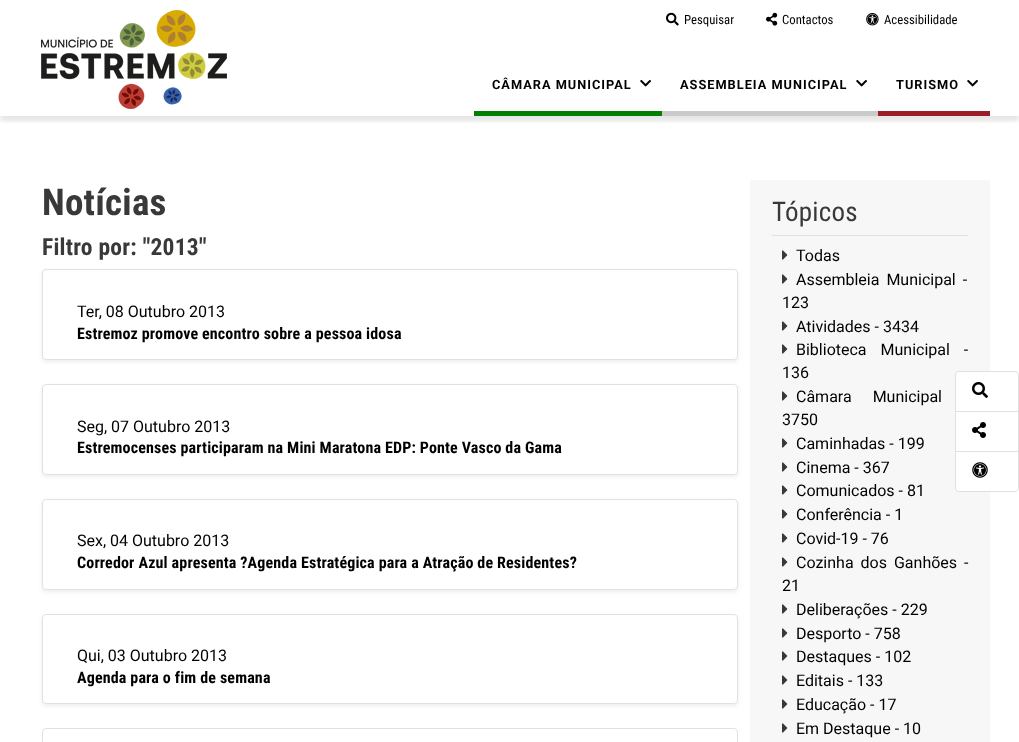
<svg xmlns="http://www.w3.org/2000/svg" width="1019" height="742" viewBox="0 0 1019 742">
  <defs>
    <clipPath id="clip1"><rect x="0" y="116" width="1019" height="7"/></clipPath>
    <clipPath id="clip2"><path d="M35 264H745V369H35ZM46 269H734C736 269 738 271 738 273V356C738 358 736 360 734 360H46C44 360 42 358 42 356V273C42 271 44 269 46 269Z" clip-rule="evenodd"/></clipPath>
    <clipPath id="clip3"><path d="M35 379H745V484H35ZM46 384H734C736 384 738 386 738 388V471C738 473 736 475 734 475H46C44 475 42 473 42 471V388C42 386 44 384 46 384Z" clip-rule="evenodd"/></clipPath>
    <clipPath id="clip4"><path d="M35 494H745V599H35ZM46 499H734C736 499 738 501 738 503V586C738 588 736 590 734 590H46C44 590 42 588 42 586V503C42 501 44 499 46 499Z" clip-rule="evenodd"/></clipPath>
    <clipPath id="clip5"><path d="M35 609H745V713H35ZM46 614H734C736 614 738 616 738 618V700C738 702 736 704 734 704H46C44 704 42 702 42 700V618C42 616 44 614 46 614Z" clip-rule="evenodd"/></clipPath>
  </defs>
  <rect width="100%" height="100%" fill="rgb(255,255,255)"/>
  <g clip-path="url(#clip1)">
    <rect x="0" y="5" width="1019" height="116" fill="rgba(0,0,0,0.1)" filter="blur(2.5px)"/>
  </g>
  <image x="41" y="10" width="186" height="99" href="pic1.png"/>
  <image x="666" y="12" width="13" height="14" href="pic2.png"/>
  <text x="684" y="24" font-family="Roboto Condensed" font-size="12.75" fill="rgb(0,0,0)">Pesquisar</text>
  <image x="766" y="12" width="12" height="14" href="pic3.png"/>
  <text x="782" y="24" font-family="Roboto Condensed" font-size="12.75" fill="rgb(0,0,0)">Contactos</text>
  <image x="866" y="13" width="13" height="13" href="pic4.png"/>
  <text x="884" y="24" font-family="Roboto Condensed" font-size="12.75" fill="rgb(0,0,0)">Acessibilidade</text>
  <rect x="474" y="111" width="188" height="5" fill="rgb(0,128,0)"/>
  <text x="492" y="89" font-family="Roboto" font-size="12.75" font-weight="bold" letter-spacing="1" fill="rgb(0,0,0)">CÂMARA MUNICIPAL</text>
  <image x="640" y="79" width="11" height="8" href="pic5.png"/>
  <rect x="662" y="111" width="216" height="5" fill="rgb(202,202,202)"/>
  <text x="680" y="89" font-family="Roboto" font-size="12.75" font-weight="bold" letter-spacing="1" fill="rgb(0,0,0)">ASSEMBLEIA MUNICIPAL</text>
  <image x="856" y="79" width="11" height="8" href="pic5.png"/>
  <rect x="878" y="111" width="112" height="5" fill="rgb(155,29,40)"/>
  <text x="896" y="89" font-family="Roboto" font-size="12.75" font-weight="bold" letter-spacing="1" fill="rgb(0,0,0)">TURISMO</text>
  <image x="967" y="79" width="11" height="8" href="pic5.png"/>
  <text x="42" y="215" font-family="Roboto Condensed" font-size="37" font-weight="bold" letter-spacing="0.25" fill="rgb(57,57,57)">Notícias</text>
  <text x="42" y="255" font-family="Roboto Condensed" font-size="23.5" font-weight="bold" letter-spacing="0.25" fill="rgb(57,57,57)">Filtro por: "2013"</text>
  <g clip-path="url(#clip2)">
    <rect x="42" y="271" width="696" height="91" rx="4" fill="rgba(0,0,0,0.07)" filter="blur(2px)"/>
  </g>
  <rect x="42.5" y="269.5" width="695" height="90" rx="3.5" fill="none" stroke="rgb(222,226,230)"/>
  <text x="77" y="317" font-family="Roboto" font-size="16" fill="rgb(0,0,0)">Ter, 08 Outubro 2013</text>
  <text x="77" y="339" font-family="Roboto Condensed" font-size="16" font-weight="bold" letter-spacing="0.15" fill="rgb(0,0,0)">Estremoz promove encontro sobre a pessoa idosa</text>
  <g clip-path="url(#clip3)">
    <rect x="42" y="386" width="696" height="91" rx="4" fill="rgba(0,0,0,0.07)" filter="blur(2px)"/>
  </g>
  <rect x="42.5" y="384.5" width="695" height="90" rx="3.5" fill="none" stroke="rgb(222,226,230)"/>
  <text x="77" y="432" font-family="Roboto" font-size="16" fill="rgb(0,0,0)">Seg, 07 Outubro 2013</text>
  <text x="77" y="453" font-family="Roboto Condensed" font-size="16" font-weight="bold" letter-spacing="0.15" fill="rgb(0,0,0)">Estremocenses participaram na Mini Maratona EDP: Ponte Vasco da Gama</text>
  <g clip-path="url(#clip4)">
    <rect x="42" y="501" width="696" height="91" rx="4" fill="rgba(0,0,0,0.07)" filter="blur(2px)"/>
  </g>
  <rect x="42.5" y="499.5" width="695" height="90" rx="3.5" fill="none" stroke="rgb(222,226,230)"/>
  <text x="77" y="546" font-family="Roboto" font-size="16" fill="rgb(0,0,0)">Sex, 04 Outubro 2013</text>
  <text x="77" y="568" font-family="Roboto Condensed" font-size="16" font-weight="bold" letter-spacing="0.15" fill="rgb(0,0,0)">Corredor Azul apresenta ?Agenda Estratégica para a Atração de Residentes?</text>
  <g clip-path="url(#clip5)">
    <rect x="42" y="616" width="696" height="90" rx="4" fill="rgba(0,0,0,0.07)" filter="blur(2px)"/>
  </g>
  <rect x="42.5" y="614.5" width="695" height="89" rx="3.5" fill="none" stroke="rgb(222,226,230)"/>
  <text x="77" y="661" font-family="Roboto" font-size="16" fill="rgb(0,0,0)">Qui, 03 Outubro 2013</text>
  <text x="77" y="683" font-family="Roboto Condensed" font-size="16" font-weight="bold" letter-spacing="0.15" fill="rgb(0,0,0)">Agenda para o fim de semana</text>
  <rect x="42.5" y="728.5" width="695" height="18" rx="3.5" fill="none" stroke="rgb(222,226,230)"/>
  <rect x="750" y="180" width="240" height="562" fill="rgb(247,247,247)"/>
  <rect x="772" y="235" width="196" height="1" fill="rgb(224,224,224)"/>
  <text x="772" y="221" font-family="Roboto Condensed" font-size="27" letter-spacing="0.25" fill="rgb(57,57,57)">Tópicos</text>
  <image x="782" y="250" width="6" height="10" href="pic6.png"/>
  <text x="796" y="261" font-family="Roboto" font-size="16" fill="rgb(0,0,0)">Todas</text>
  <image x="782" y="274" width="6" height="10" href="pic6.png"/>
  <g font-family="Roboto" font-size="16" fill="rgb(0,0,0)">
    <text x="796" y="285" word-spacing="3">Assembleia Municipal -</text>
    <text x="782" y="308">123</text>
  </g>
  <image x="782" y="321" width="6" height="10" href="pic6.png"/>
  <text x="796" y="332" font-family="Roboto" font-size="16" fill="rgb(0,0,0)">Atividades - 3434</text>
  <image x="782" y="344" width="6" height="10" href="pic6.png"/>
  <g font-family="Roboto" font-size="16" fill="rgb(0,0,0)">
    <text x="796" y="355" word-spacing="10">Biblioteca Municipal -</text>
    <text x="782" y="378">136</text>
  </g>
  <image x="782" y="391" width="6" height="10" href="pic6.png"/>
  <g font-family="Roboto" font-size="16" fill="rgb(0,0,0)">
    <text x="796" y="402" word-spacing="17">Câmara Municipal</text>
    <text x="782" y="425">3750</text>
  </g>
  <image x="782" y="438" width="6" height="10" href="pic6.png"/>
  <text x="796" y="449" font-family="Roboto" font-size="16" fill="rgb(0,0,0)">Caminhadas - 199</text>
  <image x="782" y="462" width="6" height="10" href="pic6.png"/>
  <text x="796" y="473" font-family="Roboto" font-size="16" fill="rgb(0,0,0)">Cinema - 367</text>
  <image x="782" y="485" width="6" height="10" href="pic6.png"/>
  <text x="796" y="496" font-family="Roboto" font-size="16" fill="rgb(0,0,0)">Comunicados - 81</text>
  <image x="782" y="509" width="6" height="10" href="pic6.png"/>
  <text x="796" y="520" font-family="Roboto" font-size="16" fill="rgb(0,0,0)">Conferência - 1</text>
  <image x="782" y="533" width="6" height="10" href="pic6.png"/>
  <text x="796" y="544" font-family="Roboto" font-size="16" fill="rgb(0,0,0)">Covid-19 - 76</text>
  <image x="782" y="557" width="6" height="10" href="pic6.png"/>
  <g font-family="Roboto" font-size="16" fill="rgb(0,0,0)">
    <text x="796" y="568" word-spacing="3">Cozinha dos Ganhões -</text>
    <text x="782" y="591">21</text>
  </g>
  <image x="782" y="604" width="6" height="10" href="pic6.png"/>
  <text x="796" y="615" font-family="Roboto" font-size="16" fill="rgb(0,0,0)">Deliberações - 229</text>
  <image x="782" y="628" width="6" height="10" href="pic6.png"/>
  <text x="796" y="639" font-family="Roboto" font-size="16" fill="rgb(0,0,0)">Desporto - 758</text>
  <image x="782" y="651" width="6" height="10" href="pic6.png"/>
  <text x="796" y="662" font-family="Roboto" font-size="16" fill="rgb(0,0,0)">Destaques - 102</text>
  <image x="782" y="675" width="6" height="10" href="pic6.png"/>
  <text x="796" y="686" font-family="Roboto" font-size="16" fill="rgb(0,0,0)">Editais - 133</text>
  <image x="782" y="699" width="6" height="10" href="pic6.png"/>
  <text x="796" y="710" font-family="Roboto" font-size="16" fill="rgb(0,0,0)">Educação - 17</text>
  <image x="782" y="723" width="6" height="10" href="pic6.png"/>
  <text x="796" y="734" font-family="Roboto" font-size="16" fill="rgb(0,0,0)">Em Destaque - 10</text>
  <path d="M959 371H1015C1017 371 1019 373 1019 375V412H955V375C955 373 957 371 959 371Z" fill="rgb(255,255,255)"/>
  <path d="M959 371.5H1015C1017 371.5 1018.5 373 1018.5 375V411.5H955.5V375C955.5 373 957 371.5 959 371.5Z" fill="none" stroke="rgba(0,0,0,0.12)"/>
  <image x="972" y="382" width="16" height="16" href="pic7.png"/>
  <rect x="955" y="412" width="35" height="40" fill="rgb(255,255,255)"/>
  <path d="M1019 412V452L1018 451V412Z" fill="rgb(223,223,223)"/>
  <path d="M1019 452H955L956 451H1018Z" fill="rgba(0,0,0,0.12)"/>
  <path d="M955 452V412H956V451Z" fill="rgba(0,0,0,0.12)"/>
  <image x="972" y="422" width="14" height="16" href="pic8.png"/>
  <path d="M955 452H1019V488C1019 490 1017 492 1015 492H959C957 492 955 490 955 488Z" fill="rgb(255,255,255)"/>
  <path d="M955 452H1019V488C1019 490 1017 492 1015 492H959C957 492 955 490 955 488ZM956 452H1018V488C1018 490 1017 491 1015 491H959C957 491 956 490 956 488Z" fill="rgba(0,0,0,0.12)" fill-rule="evenodd"/>
  <image x="972" y="462" width="16" height="16" href="pic9.png"/>
</svg>
